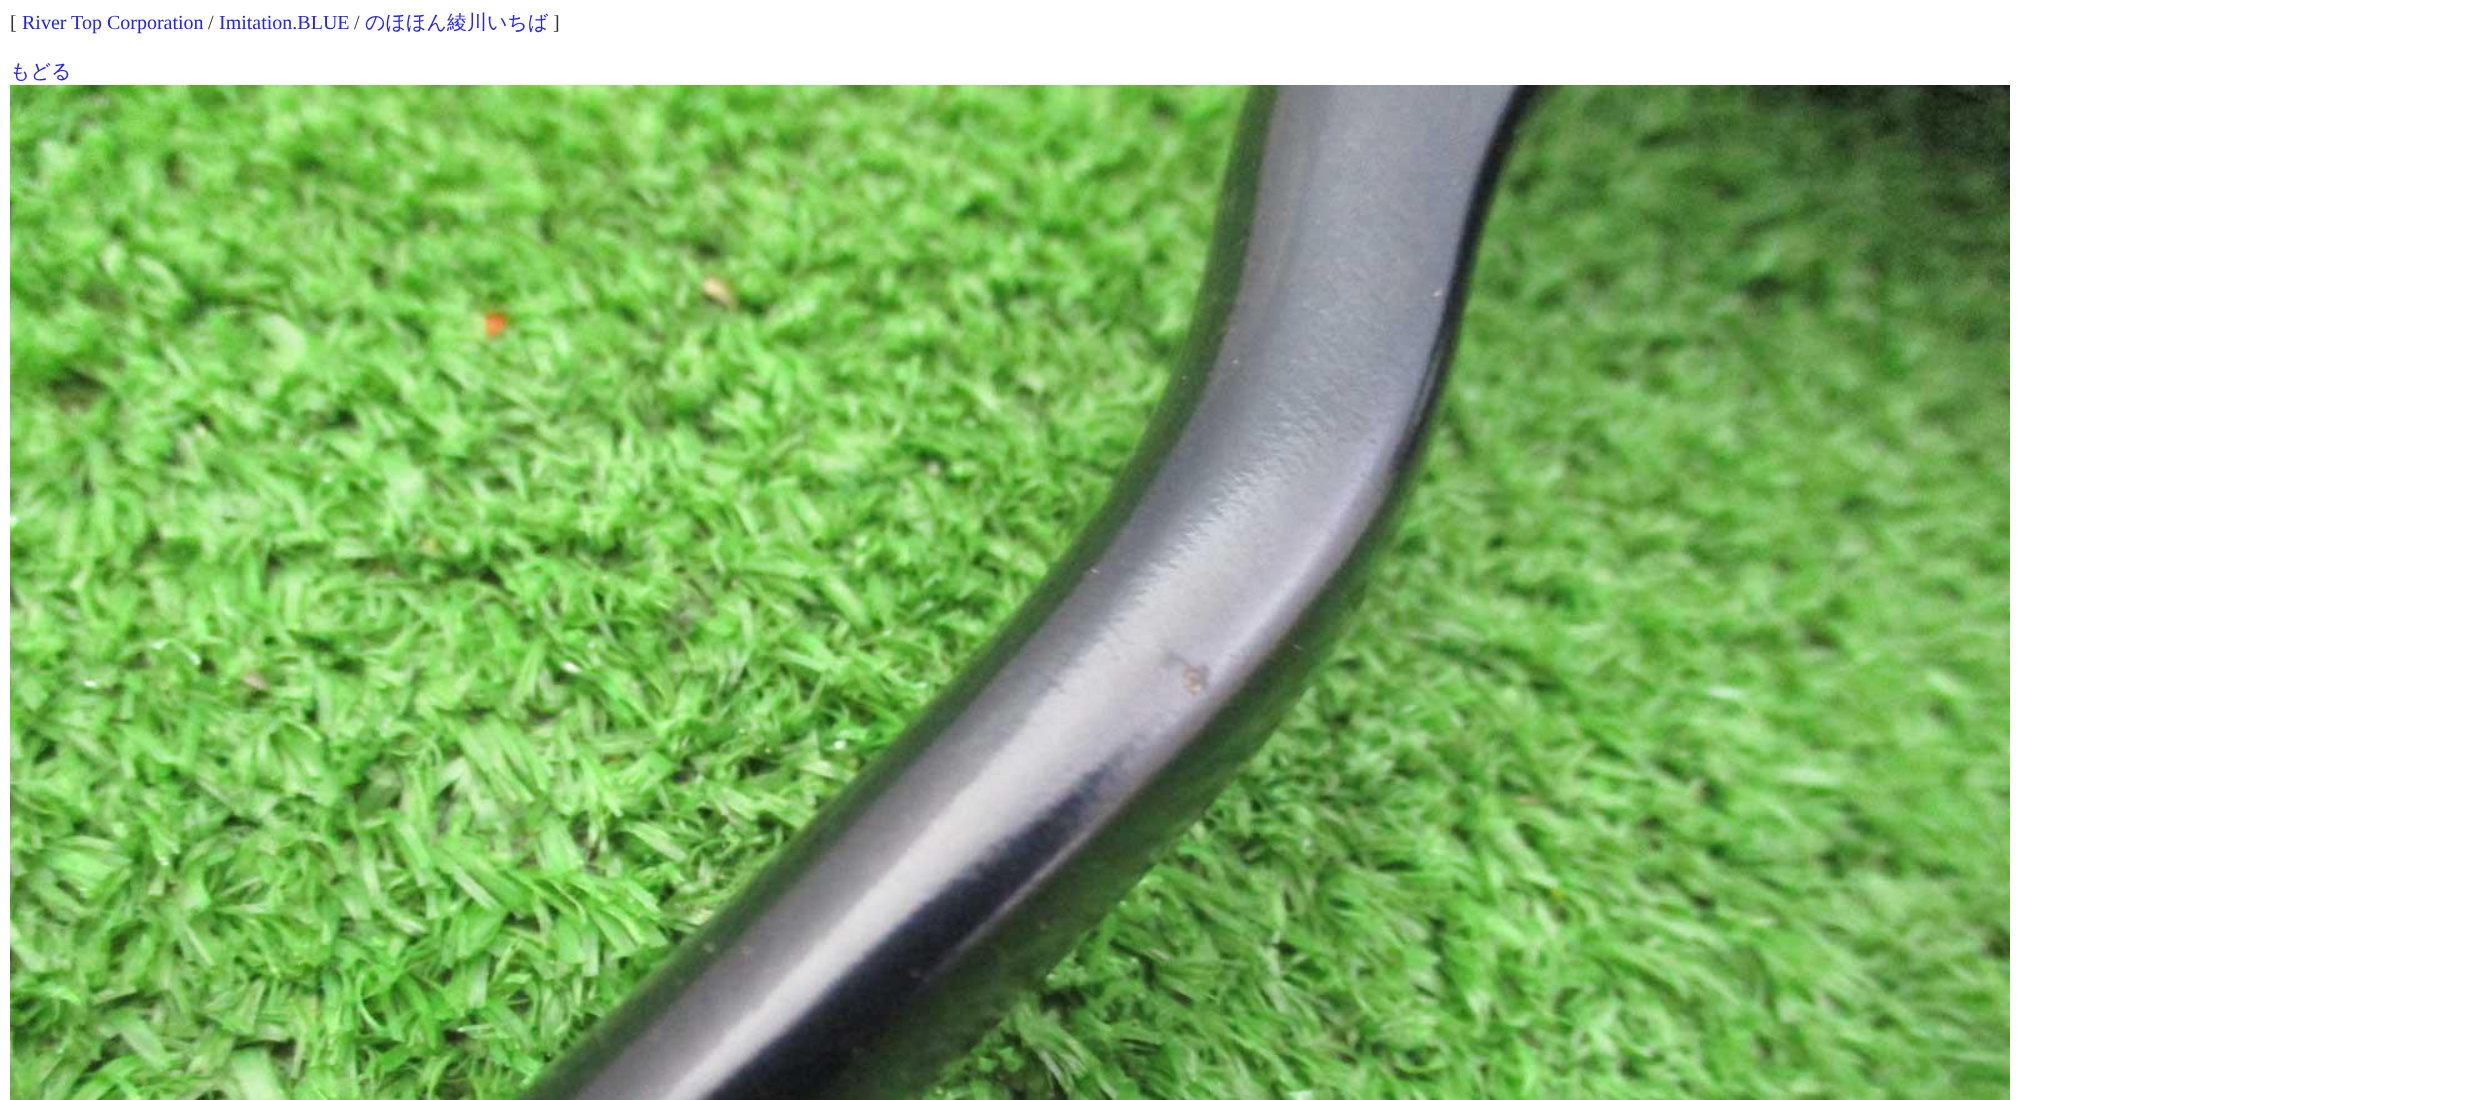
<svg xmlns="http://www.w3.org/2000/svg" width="2474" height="1100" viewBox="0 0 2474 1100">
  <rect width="100%" height="100%" fill="rgb(255,255,255)"/>
  <text x="10" y="29" font-family="Liberation Serif" font-size="20" fill="rgb(51,51,51)">[</text>
  <text x="22" y="29" font-family="Liberation Serif" font-size="20" fill="rgb(34,34,255)">River Top Corporation</text>
  <text x="208" y="29" font-family="Liberation Serif" font-size="20" fill="rgb(51,51,51)">/</text>
  <text x="219" y="29" font-family="Liberation Serif" font-size="20" fill="rgb(34,34,255)">Imitation.BLUE</text>
  <text x="354" y="29" font-family="Liberation Serif" font-size="20" fill="rgb(51,51,51)">/</text>
  <text x="365" y="29" font-family="WenQuanYi Zen Hei" font-size="20" font-weight="500" fill="rgb(34,34,255)">のほほん綾川いちば</text>
  <text x="553" y="29" font-family="Liberation Serif" font-size="20" fill="rgb(51,51,51)">]</text>
  <text x="10" y="78" font-family="WenQuanYi Zen Hei" font-size="20" font-weight="500" fill="rgb(34,34,255)">もどる</text>
  <image x="10" y="85" width="2000" height="1015" href="pic1.png"/>
</svg>
